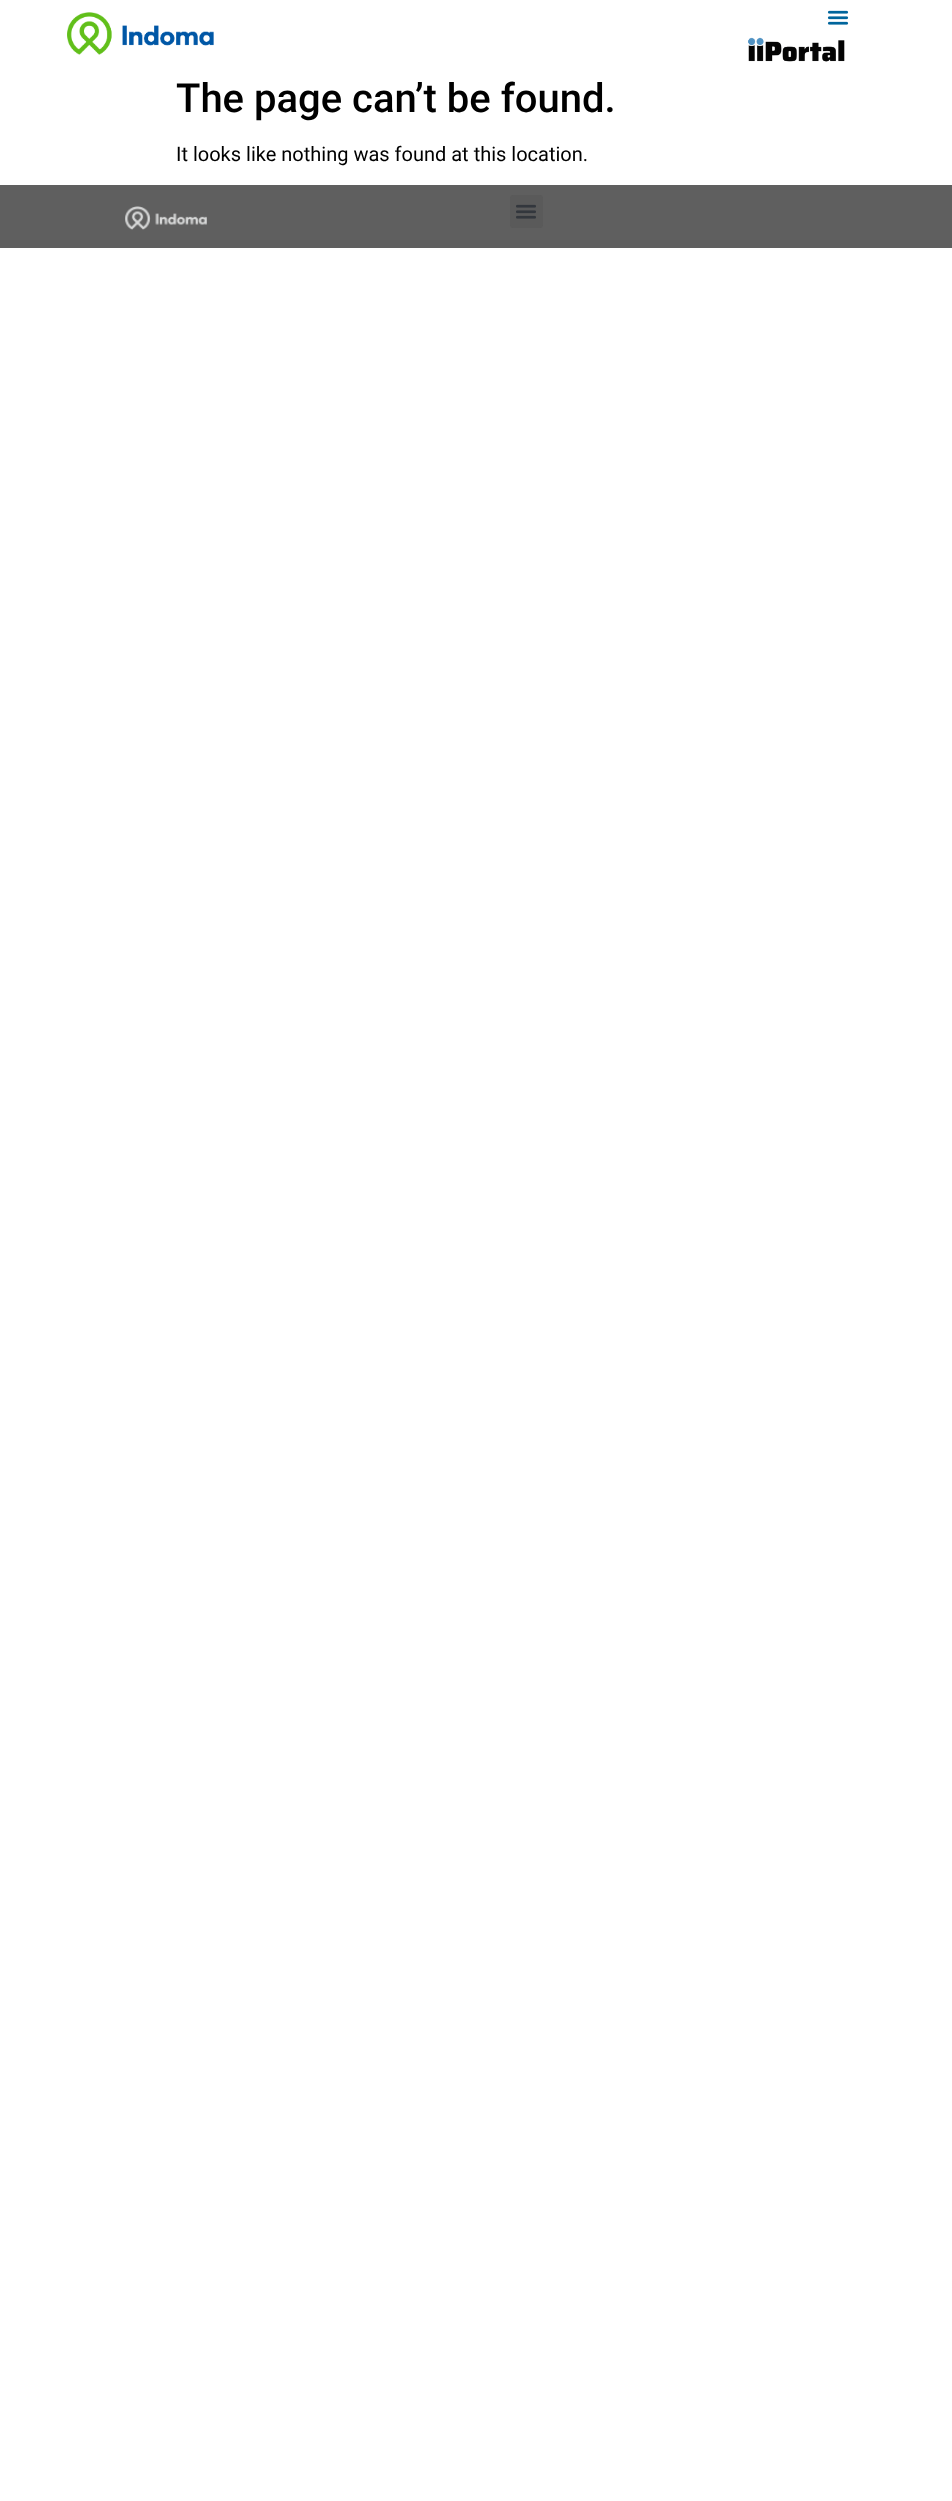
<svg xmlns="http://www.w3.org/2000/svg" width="952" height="2501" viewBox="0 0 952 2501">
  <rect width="100%" height="100%" fill="rgb(255,255,255)"/>
  <image x="67" y="12" width="147" height="43" href="pic1.png"/>
  <image x="827" y="10" width="22" height="15" href="pic2.png"/>
  <image x="748" y="37" width="97" height="25" href="pic3.png"/>
  <text x="176" y="112" font-family="Roboto" font-size="40" font-weight="500" fill="rgb(0,0,0)">The page can’t be found.</text>
  <text x="176" y="161" font-family="Roboto" font-size="20" fill="rgb(0,0,0)">It looks like nothing was found at this location.</text>
  <rect x="0" y="185" width="952" height="63" fill="rgb(95,95,95)"/>
  <image x="125" y="206" width="82" height="24" href="pic4.png"/>
  <rect x="510" y="195" width="33" height="33" rx="3" fill="rgb(90,90,90)"/>
  <image x="516" y="204" width="20" height="15" href="pic5.png"/>
</svg>
